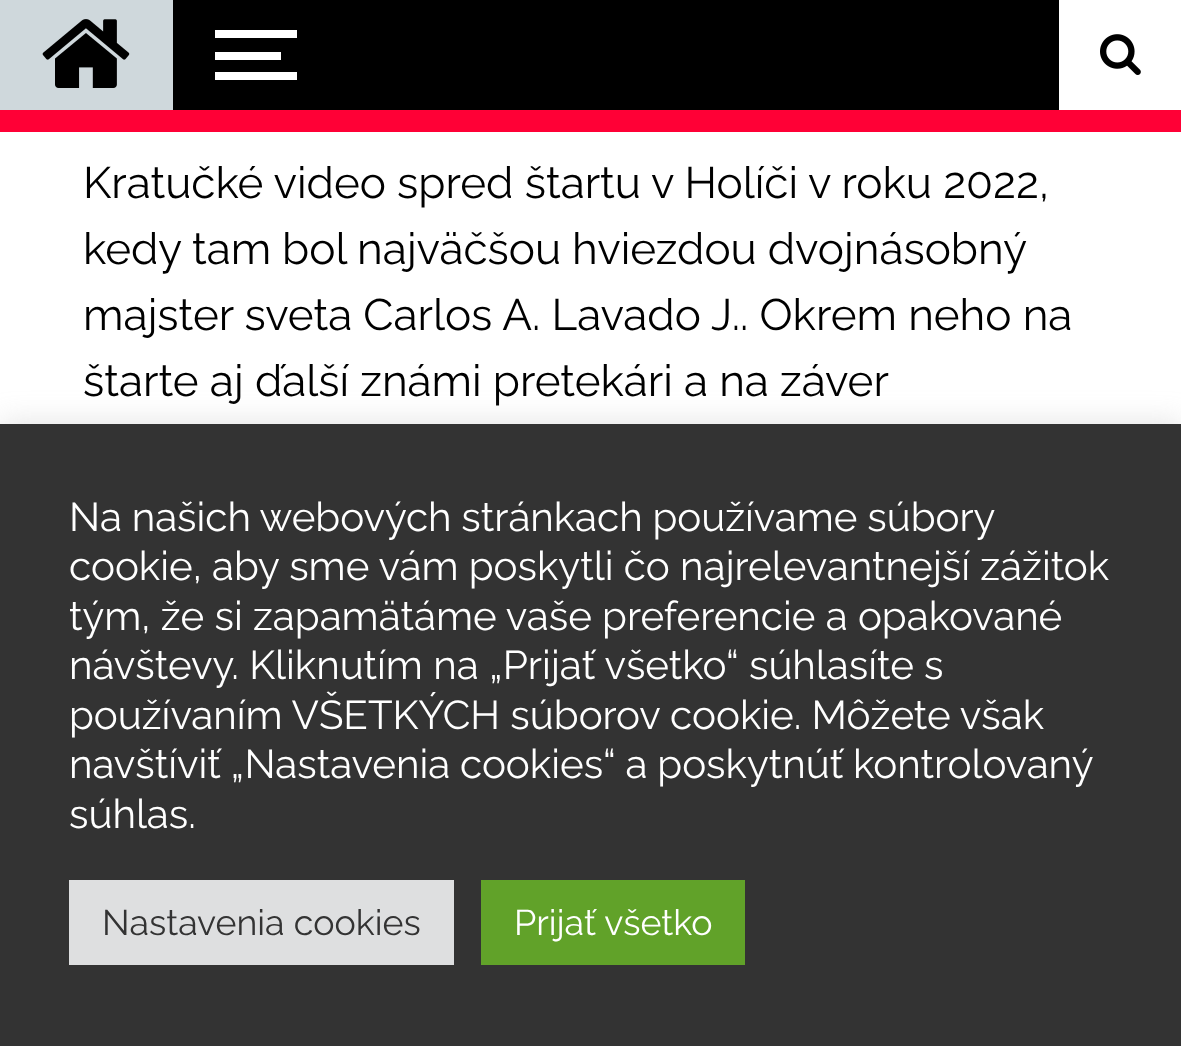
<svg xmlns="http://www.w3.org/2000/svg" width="1181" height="1046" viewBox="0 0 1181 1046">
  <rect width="100%" height="100%" fill="rgb(255,255,255)"/>
  <rect x="173" y="0" width="886" height="110" fill="rgb(0,0,0)"/>
  <rect x="0" y="0" width="173" height="110" fill="rgb(207,216,220)"/>
  <image x="42" y="19" width="88" height="69" href="pic1.png"/>
  <rect x="215" y="30" width="82" height="8" fill="rgb(255,255,255)"/>
  <rect x="215" y="72" width="82" height="8" fill="rgb(255,255,255)"/>
  <rect x="215" y="52" width="66" height="8" fill="rgb(255,255,255)"/>
  <image x="1100" y="34" width="41" height="41" href="pic2.png"/>
  <rect x="0" y="110" width="1181" height="22" fill="rgb(255,0,54)"/>
  <g font-family="Raleway" font-size="44" fill="rgb(0,0,0)">
    <text>
      <tspan x="83" y="198">Kratučké video spred štartu v Holíči v roku 2022,</tspan>
      <tspan x="83" y="264" word-spacing="-0.25">kedy tam bol najväčšou hviezdou dvojnásobný</tspan>
      <tspan x="83" y="330">majster sveta Carlos A. Lavado J.. Okrem neho na</tspan>
      <tspan x="83" y="396">štarte aj ďalší známi pretekári a na záver</tspan>
    </text>
  </g>
  <rect x="0" y="421" width="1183" height="624" fill="rgba(172,171,171,0.3)" filter="blur(14px)"/>
  <rect x="0" y="424" width="1181" height="622" fill="rgb(51,51,51)"/>
  <g font-family="Raleway" font-size="40.3" fill="rgb(255,255,255)">
    <text>
      <tspan x="69" y="531" word-spacing="-0.5">Na našich webových stránkach používame súbory</tspan>
      <tspan x="69" y="580">cookie, aby sme vám poskytli čo najrelevantnejší zážitok</tspan>
      <tspan x="69" y="630">tým, že si zapamätáme vaše preferencie a opakované</tspan>
      <tspan x="69" y="679">návštevy. Kliknutím na „Prijať všetko“ súhlasíte s</tspan>
      <tspan x="69" y="729">používaním VŠETKÝCH súborov cookie. Môžete však</tspan>
      <tspan x="69" y="778" word-spacing="-0.5">navštíviť „Nastavenia cookies“ a poskytnúť kontrolovaný</tspan>
      <tspan x="69" y="828">súhlas.</tspan>
    </text>
  </g>
  <rect x="69" y="880" width="385" height="85" fill="rgb(222,223,224)"/>
  <text x="102" y="935" font-family="Raleway" font-size="35.75" fill="rgb(51,51,51)">Nastavenia cookies</text>
  <rect x="481" y="880" width="264" height="85" fill="rgb(97,162,41)"/>
  <text x="514" y="935" font-family="Raleway" font-size="35.75" fill="rgb(255,255,255)">Prijať všetko</text>
</svg>
